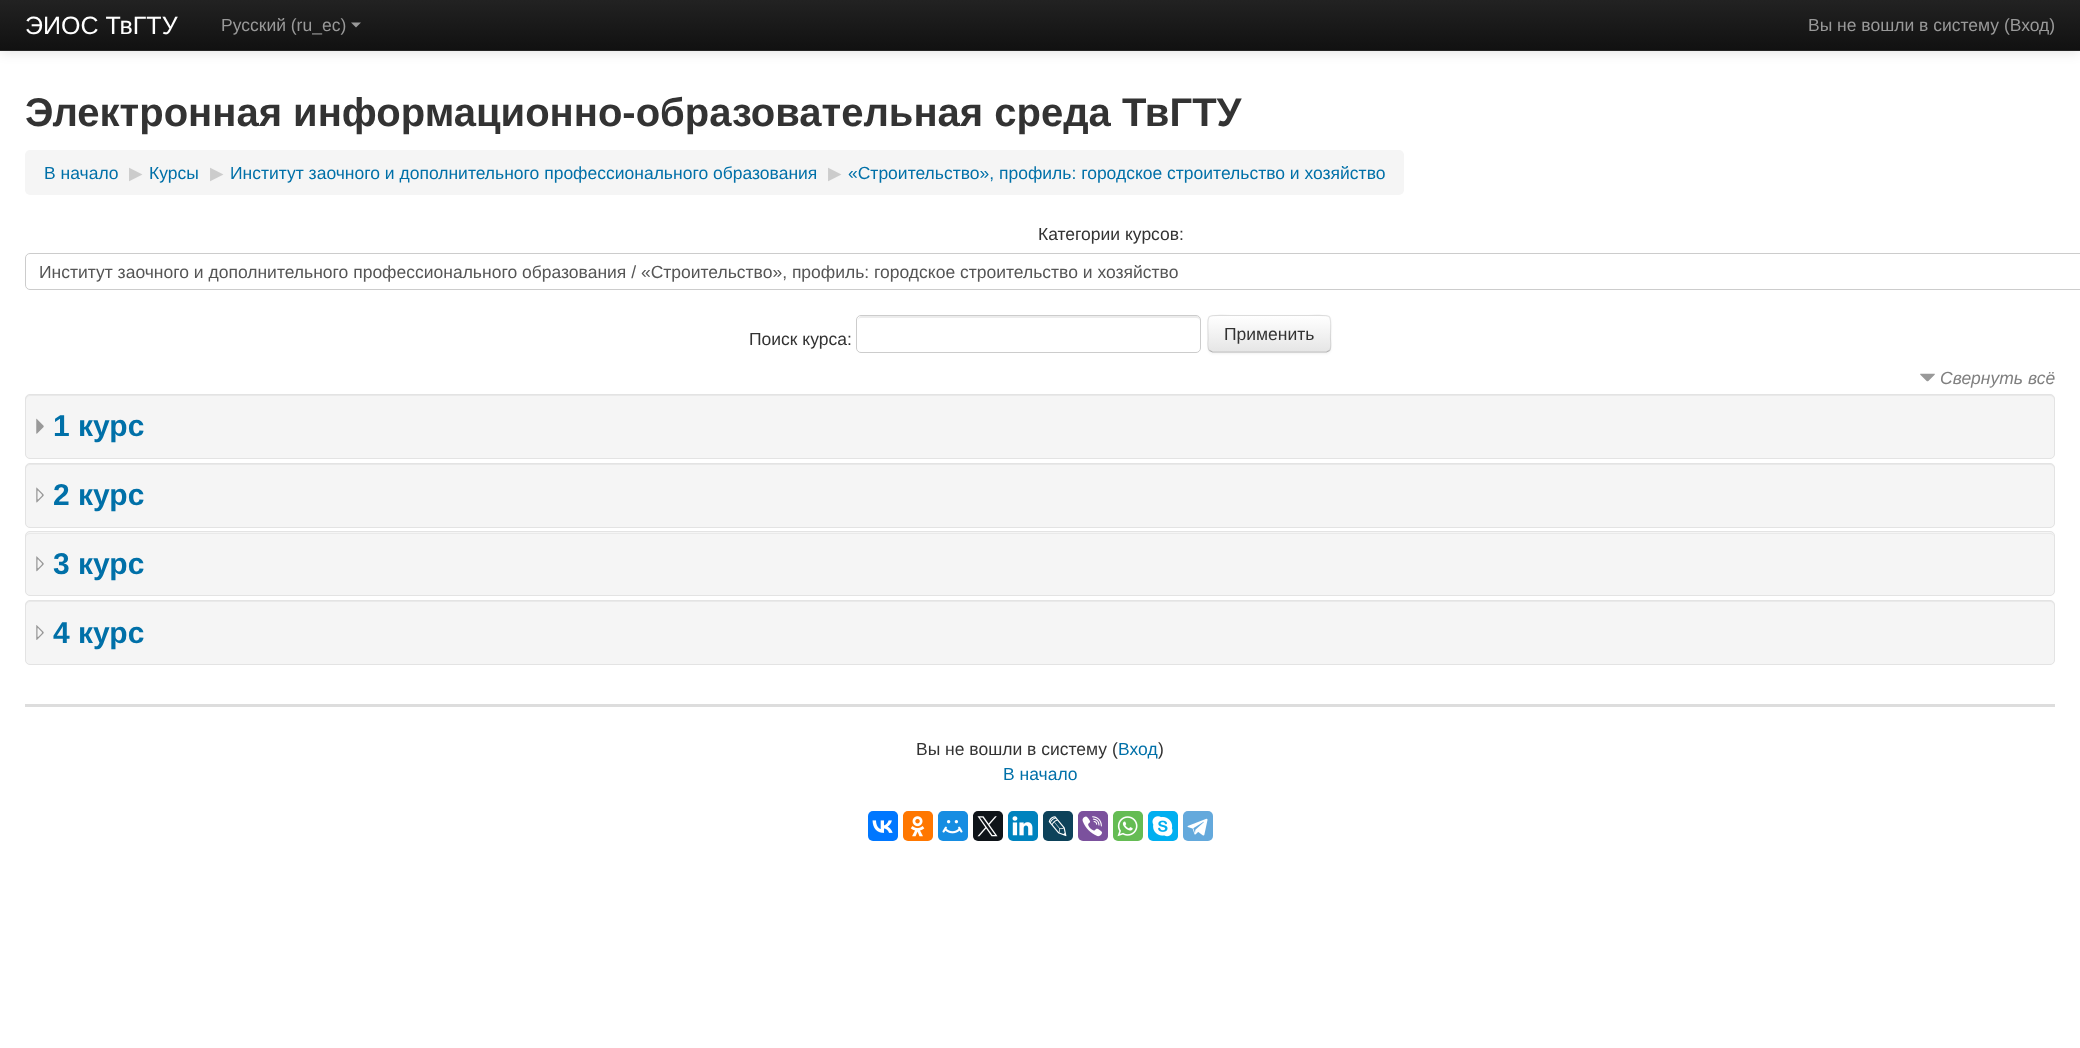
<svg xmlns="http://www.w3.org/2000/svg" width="2080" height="1048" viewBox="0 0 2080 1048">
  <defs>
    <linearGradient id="g1" gradientUnits="userSpaceOnUse" x1="1040" y1="0" x2="1040" y2="50"><stop offset="0" stop-color="rgb(34,34,34)"/><stop offset="1" stop-color="rgb(17,17,17)"/></linearGradient>
    <clipPath id="clip1"><rect x="1208" y="315" width="123" height="38" rx="5"/></clipPath>
    <linearGradient id="g2" gradientUnits="userSpaceOnUse" x1="1269" y1="316" x2="1269" y2="351"><stop offset="0" stop-color="rgb(255,255,255)"/><stop offset="1" stop-color="rgb(230,230,230)"/></linearGradient>
  </defs>
  <rect width="100%" height="100%" fill="rgb(255,255,255)"/>
  <rect x="0" y="1" width="2080" height="52" fill="rgba(0,0,0,0.1)" filter="blur(6px)"/>
  <rect x="0" y="0" width="2080" height="50" fill="url(#g1)"/>
  <rect x="0" y="50" width="2080" height="1" fill="rgb(37,37,37)"/>
  <text x="25" y="34" font-family="Liberation Sans" font-size="25" fill="rgb(255,255,255)">ЭИОС ТвГТУ</text>
  <text x="221" y="31" font-family="Liberation Sans" font-size="17.5" fill="rgb(153,153,153)">Русский (ru_ec)</text>
  <path d="M351 22.5H361L356 27.5Z" fill="rgb(153,153,153)"/>
  <text x="1808" y="31" font-family="Liberation Sans" font-size="17.5" fill="rgb(153,153,153)">Вы не вошли в систему (Вход)</text>
  <text x="25" y="126" font-family="Liberation Sans" font-size="40" font-weight="bold" fill="rgb(51,51,51)">Электронная информационно-образовательная среда ТвГТУ</text>
  <rect x="25" y="150" width="1379" height="45" rx="5" fill="rgb(245,245,245)"/>
  <text x="44" y="179" font-family="Liberation Sans" font-size="17.5" fill="rgb(0,112,168)">В начало</text>
  <text x="129" y="179" font-family="DejaVu Sans" font-size="17.5" fill="rgb(204,204,204)">▶</text>
  <text x="149" y="179" font-family="Liberation Sans" font-size="17.5" fill="rgb(0,112,168)">Курсы</text>
  <text x="210" y="179" font-family="DejaVu Sans" font-size="17.5" fill="rgb(204,204,204)">▶</text>
  <text x="230" y="179" font-family="Liberation Sans" font-size="17.5" fill="rgb(0,112,168)">Институт заочного и дополнительного профессионального образования</text>
  <text x="828" y="179" font-family="DejaVu Sans" font-size="17.5" fill="rgb(204,204,204)">▶</text>
  <text x="848" y="179" font-family="Liberation Sans" font-size="17.5" fill="rgb(0,112,168)">«Строительство», профиль: городское строительство и хозяйство</text>
  <text x="1038" y="240" font-family="Liberation Sans" font-size="17.5" fill="rgb(51,51,51)">Категории курсов:</text>
  <rect x="25.5" y="253.5" width="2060" height="36" rx="4.5" fill="none" stroke="rgb(204,204,204)"/>
  <text x="39" y="278" font-family="Liberation Sans" font-size="17.5" fill="rgb(85,85,85)">Институт заочного и дополнительного профессионального образования / «Строительство», профиль: городское строительство и хозяйство</text>
  <text x="749" y="345" font-family="Liberation Sans" font-size="17.5" fill="rgb(51,51,51)">Поиск курса:</text>
  <path d="M861 318H1196C1198 318 1200 319 1200 321V320C1200 318 1198 316 1196 316H862C860 316 858 318 858 320V321C858 319 859 318 861 318Z" fill="rgb(236,236,236)"/>
  <rect x="856.5" y="315.5" width="344" height="37" rx="4.5" fill="none" stroke="rgb(204,204,204)"/>
  <rect x="1208" y="316" width="123" height="38" rx="5" fill="rgba(0,0,0,0.05)" filter="blur(1px)"/>
  <rect x="1208" y="315" width="123" height="38" rx="5" fill="rgb(245,245,245)"/>
  <g clip-path="url(#clip1)">
    <rect x="1208" y="316" width="123" height="35" fill="url(#g2)"/>
  </g>
  <path d="M1329.5 350.5L1326.5 352H1231.5H1212.5L1209.5 350.5" fill="none" stroke="rgb(179,179,179)" stroke-width="1.2"/>
  <path d="M1209.5 350.5C1206.5 348 1208 341.5 1208 338.5C1208 311.5 1203.5 315.5 1231.5 315.5H1307.5C1335 315.5 1330.5 311.5 1330.5 338.5C1330.5 341.5 1332 348 1329.5 350.5" fill="none" stroke="rgba(0,0,0,0.1)" stroke-width="1.2"/>
  <text x="1224" y="340" font-family="Liberation Sans" font-size="17.5" fill="rgb(51,51,51)">Применить</text>
  <image x="1920" y="373" width="15" height="9" href="pic1.png"/>
  <text x="1940" y="384" font-family="Liberation Sans" font-size="17.5" font-style="italic" fill="rgb(128,128,128)">Свернуть всё</text>
  <rect x="25" y="394" width="2030" height="65" rx="5" fill="rgb(245,245,245)"/>
  <path d="M30 396H2050C2052 396 2054 398 2054 400C2054 397 2053 395 2050 395H30C28 395 26 396 26 398V400C26 398 28 396 30 396Z" fill="rgb(233,233,233)"/>
  <rect x="25.5" y="394.5" width="2029" height="64" rx="4.5" fill="none" stroke="rgb(227,227,227)"/>
  <image x="36" y="418" width="8" height="16" href="pic2.png"/>
  <text x="53" y="436" font-family="Liberation Sans" font-size="30" font-weight="bold" fill="rgb(0,112,168)">1 курс</text>
  <rect x="25" y="463" width="2030" height="65" rx="5" fill="rgb(245,245,245)"/>
  <path d="M30 465H2050C2052 465 2054 467 2054 469C2054 466 2053 464 2050 464H30C28 464 26 465 26 467V469C26 467 28 465 30 465Z" fill="rgb(233,233,233)"/>
  <rect x="25.5" y="463.5" width="2029" height="64" rx="4.5" fill="none" stroke="rgb(227,227,227)"/>
  <image x="36" y="487" width="8" height="16" href="pic3.png"/>
  <text x="53" y="505" font-family="Liberation Sans" font-size="30" font-weight="bold" fill="rgb(0,112,168)">2 курс</text>
  <rect x="25" y="531" width="2030" height="65" rx="5" fill="rgb(245,245,245)"/>
  <path d="M30 534H2050C2052 534 2054 535 2054 538C2054 535 2053 533 2050 533H30C28 533 26 534 26 536V538C26 535 28 534 30 534Z" fill="rgb(233,233,233)"/>
  <rect x="25.5" y="531.5" width="2029" height="64" rx="4.5" fill="none" stroke="rgb(227,227,227)"/>
  <image x="36" y="556" width="8" height="16" href="pic4.png"/>
  <text x="53" y="574" font-family="Liberation Sans" font-size="30" font-weight="bold" fill="rgb(0,112,168)">3 курс</text>
  <rect x="25" y="600" width="2030" height="65" rx="5" fill="rgb(245,245,245)"/>
  <path d="M30 602H2050C2052 602 2054 604 2054 606C2054 603 2053 601 2050 601H30C28 601 26 602 26 604V606C26 604 28 602 30 602Z" fill="rgb(233,233,233)"/>
  <rect x="25.5" y="600.5" width="2029" height="64" rx="4.5" fill="none" stroke="rgb(227,227,227)"/>
  <image x="36" y="625" width="8" height="15" href="pic5.png"/>
  <text x="53" y="643" font-family="Liberation Sans" font-size="30" font-weight="bold" fill="rgb(0,112,168)">4 курс</text>
  <rect x="25" y="704" width="2030" height="3" fill="rgb(221,221,221)"/>
  <text x="916" y="755" font-family="Liberation Sans" font-size="17.5" fill="rgb(51,51,51)">Вы не вошли в систему (</text>
  <text x="1118" y="755" font-family="Liberation Sans" font-size="17.5" fill="rgb(0,112,168)">Вход</text>
  <text x="1158" y="755" font-family="Liberation Sans" font-size="17.5" fill="rgb(51,51,51)">)</text>
  <text x="1003" y="780" font-family="Liberation Sans" font-size="17.5" fill="rgb(0,112,168)">В начало</text>
  <rect x="868" y="811" width="30" height="30" rx="5" fill="rgb(0,119,255)"/>
  <image x="872" y="820" width="21" height="13" href="pic6.png"/>
  <rect x="903" y="811" width="30" height="30" rx="5" fill="rgb(255,119,0)"/>
  <image x="910" y="816" width="15" height="21" href="pic7.png"/>
  <rect x="938" y="811" width="30" height="30" rx="5" fill="rgb(22,141,226)"/>
  <image x="942" y="820" width="21" height="14" href="pic8.png"/>
  <rect x="973" y="811" width="30" height="30" rx="5" fill="rgb(15,20,25)"/>
  <image x="977" y="816" width="21" height="21" href="pic9.png"/>
  <rect x="1008" y="811" width="30" height="30" rx="5" fill="rgb(0,131,190)"/>
  <image x="1012" y="816" width="21" height="20" href="pic10.png"/>
  <rect x="1043" y="811" width="30" height="30" rx="5" fill="rgb(13,66,90)"/>
  <image x="1048" y="816" width="19" height="21" href="pic11.png"/>
  <rect x="1078" y="811" width="30" height="30" rx="5" fill="rgb(123,81,157)"/>
  <image x="1082" y="816" width="20" height="21" href="pic12.png"/>
  <rect x="1113" y="811" width="30" height="30" rx="5" fill="rgb(101,188,84)"/>
  <image x="1117" y="816" width="21" height="21" href="pic13.png"/>
  <rect x="1148" y="811" width="30" height="30" rx="5" fill="rgb(0,175,240)"/>
  <image x="1152" y="816" width="21" height="21" href="pic14.png"/>
  <rect x="1183" y="811" width="30" height="30" rx="5" fill="rgb(100,169,220)"/>
  <image x="1187" y="818" width="21" height="18" href="pic15.png"/>
</svg>
